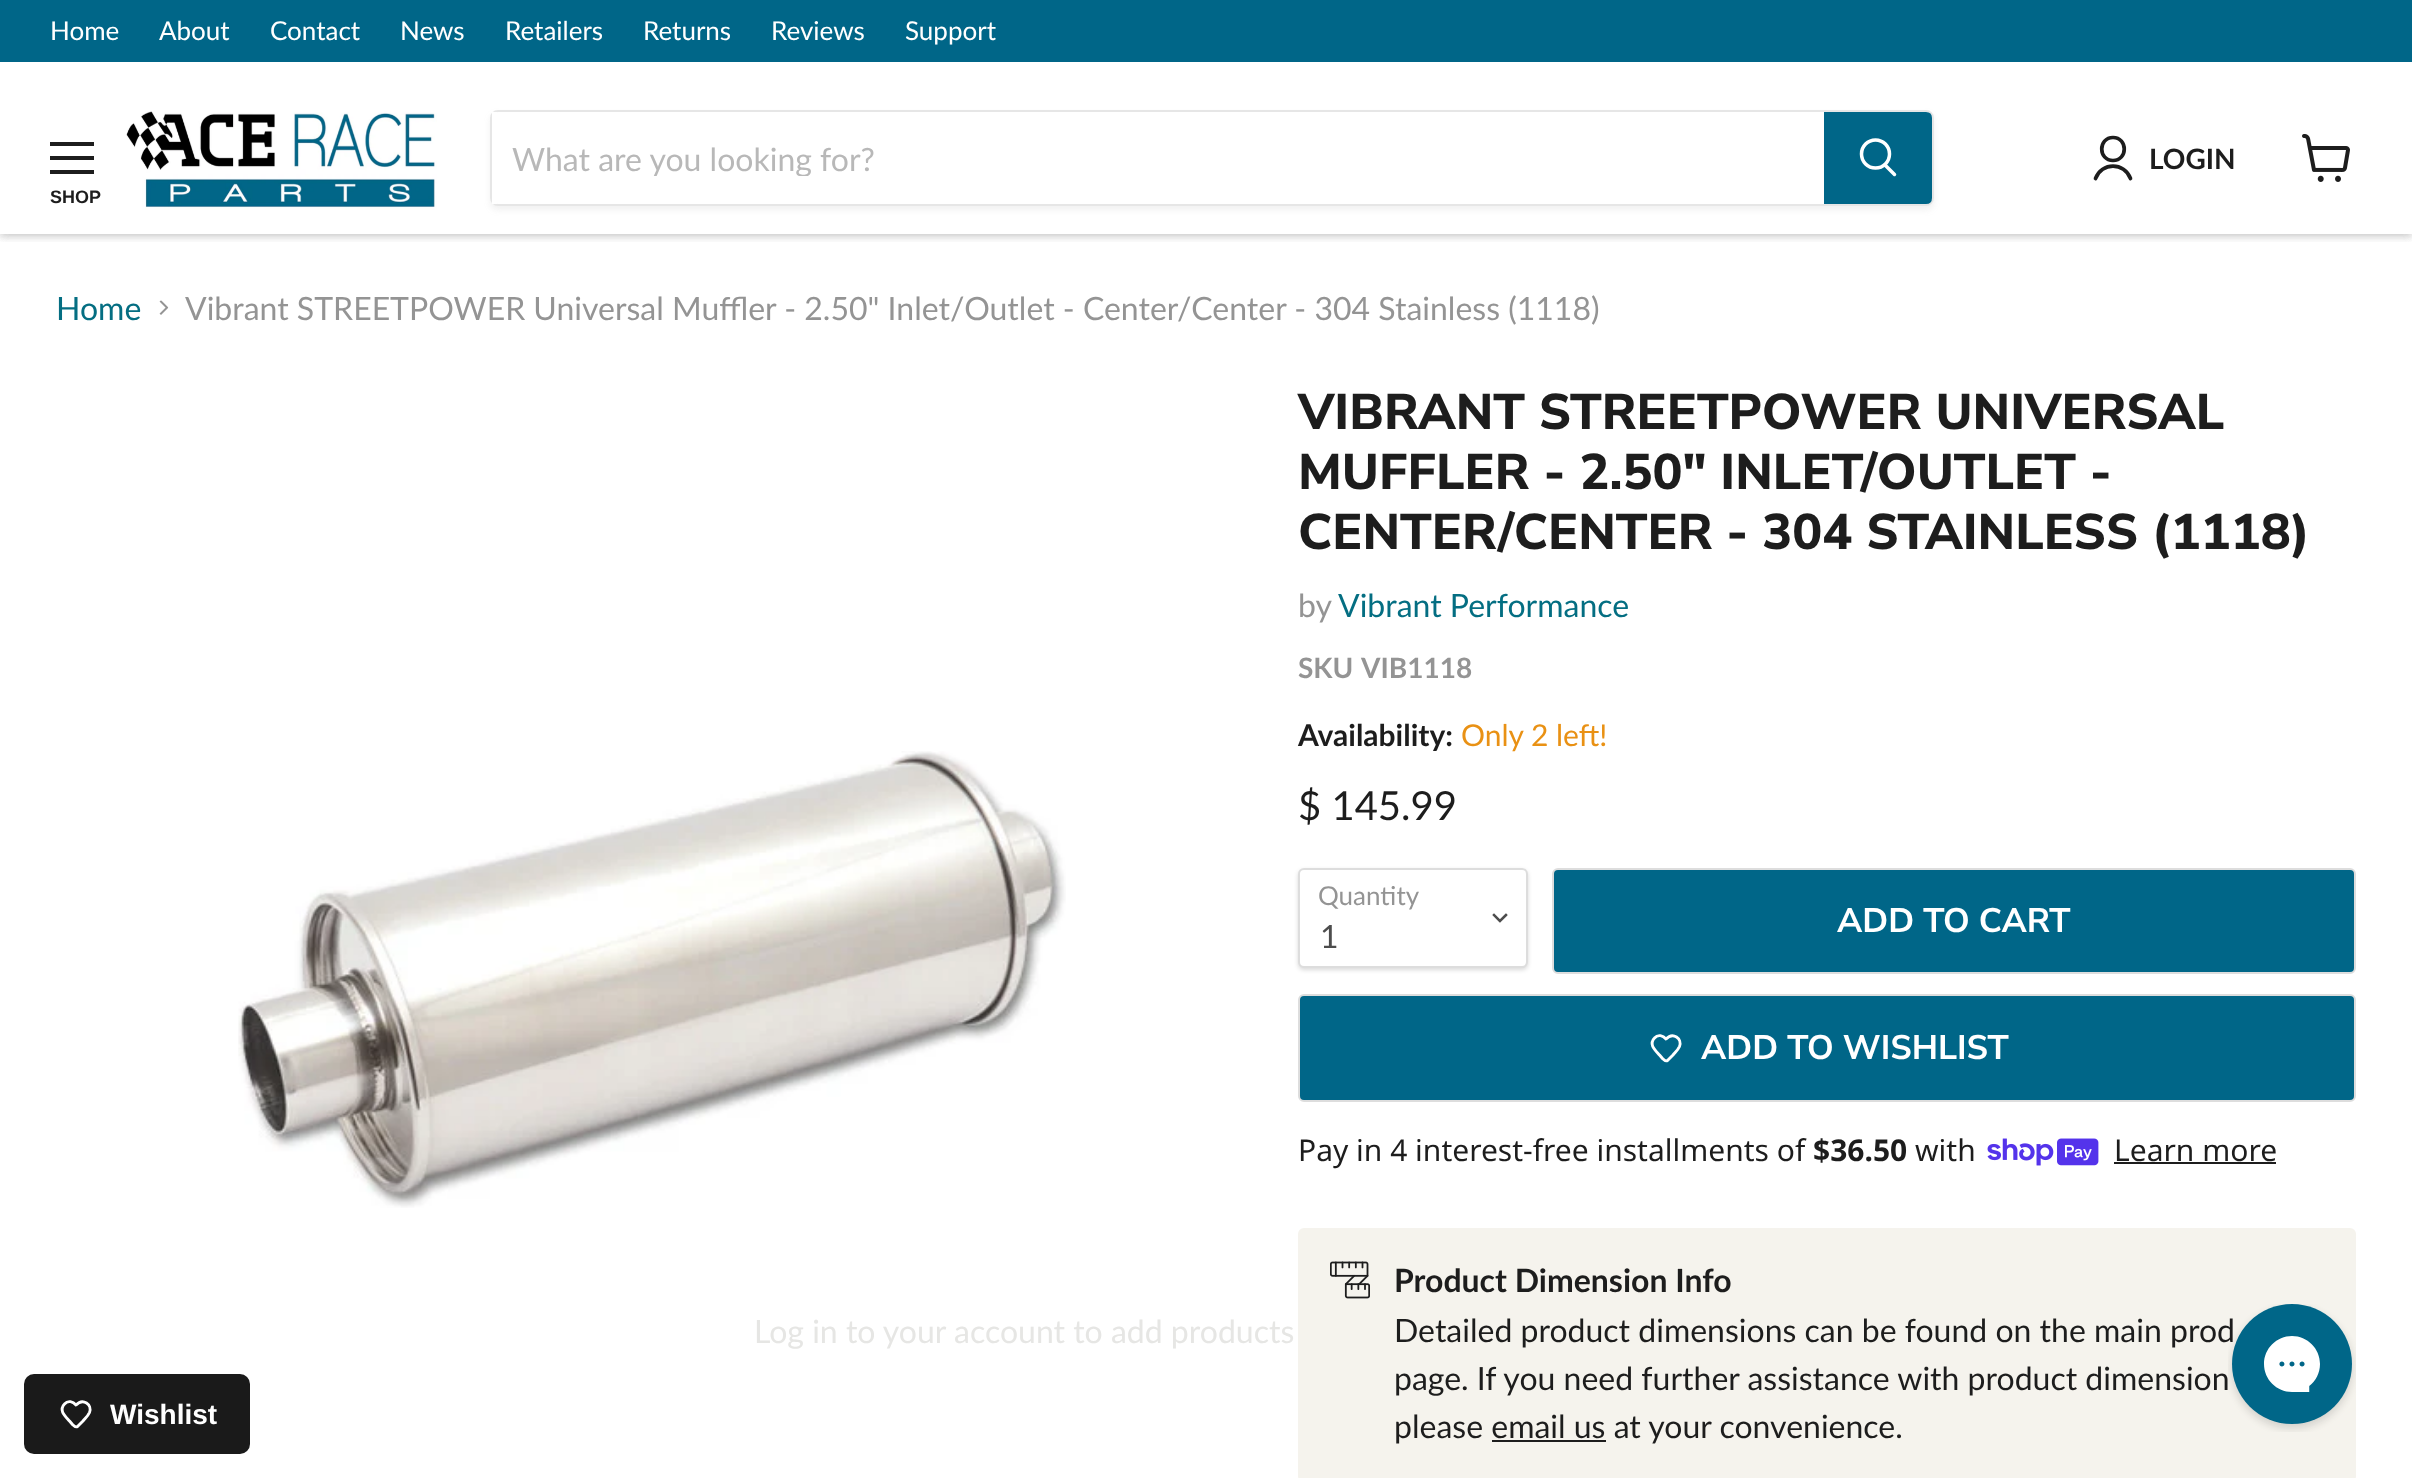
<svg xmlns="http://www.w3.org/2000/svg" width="2412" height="1478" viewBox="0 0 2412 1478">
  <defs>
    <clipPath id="clip1"><rect x="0" y="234" width="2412" height="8"/></clipPath>
    <clipPath id="clip2"><path d="M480 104H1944V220H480ZM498 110H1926C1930.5 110 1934 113.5 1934 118V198C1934 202.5 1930.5 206 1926 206H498C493.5 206 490 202.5 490 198V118C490 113.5 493.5 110 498 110Z" clip-rule="evenodd"/></clipPath>
    <clipPath id="clip3"><rect x="512" y="138" width="1292" height="38"/></clipPath>
  </defs>
  <rect width="100%" height="100%" fill="rgb(255,255,255)"/>
  <g clip-path="url(#clip1)">
    <rect x="0" y="66" width="2412" height="170" fill="rgba(128,128,128,0.25)" filter="blur(4px)"/>
    <rect x="0" y="66" width="2412" height="170" fill="rgba(128,128,128,0.25)" filter="blur(4px)"/>
  </g>
  <rect x="0" y="0" width="2412" height="62" fill="rgb(0,102,136)"/>
  <rect x="0" y="62" width="2412" height="2" fill="rgb(255,255,255)"/>
  <g font-family="Lato" font-size="26" fill="rgb(255,255,255)">
    <text x="50" y="40">Home</text>
    <text x="159" y="40">About</text>
    <text x="270" y="40">Contact</text>
    <text x="400" y="40">News</text>
    <text x="505" y="40">Retailers</text>
    <text x="643" y="40">Returns</text>
    <text x="771" y="40">Reviews</text>
    <text x="905" y="40">Support</text>
  </g>
  <image x="126" y="111" width="311" height="99" href="pic1.png"/>
  <g clip-path="url(#clip2)">
    <rect x="490" y="114" width="1444" height="96" rx="8" fill="rgba(128,128,128,0.11)" filter="blur(3px)"/>
  </g>
  <rect x="491" y="111" width="1442" height="94" rx="7" fill="none" stroke="rgba(128,128,128,0.2)" stroke-width="2"/>
  <rect x="492" y="112" width="5" height="92" fill="rgb(255,255,255)"/>
  <g clip-path="url(#clip3)">
    <text x="512" y="171" font-family="Lato" font-size="32" fill="rgb(184,184,184)">What are you looking for?</text>
  </g>
  <path d="M1825 113H1926C1929 113 1931 115 1931 118V198C1931 201 1929 203 1926 203H1825Z" fill="rgb(0,102,136)" stroke="rgb(0,102,136)" stroke-width="2"/>
  <path d="M1894.5 174.5L1885 165" fill="none" stroke="rgb(255,255,255)" stroke-width="3.5" stroke-linecap="round"/>
  <circle cx="1875.5" cy="154" r="14" fill="none" stroke="rgb(255,255,255)" stroke-width="3.5"/>
  <path d="M2113 160.5C2128 160.5 2128 137.5 2113 137.5C2098 137.5 2098 160.5 2113 160.5ZM2130.5 178.5C2124.5 162 2101.5 162 2095.5 178.5" fill="none" stroke="rgb(29,29,29)" stroke-width="3.7" stroke-linecap="round" stroke-linejoin="round"/>
  <text x="2149" y="169" font-family="Lato" font-size="28" font-weight="bold" fill="rgb(29,29,29)">LOGIN</text>
  <image x="2302" y="134" width="48" height="48" href="pic2.png"/>
  <rect x="50" y="142" width="44" height="4" fill="rgb(29,29,29)"/>
  <rect x="50" y="156" width="44" height="4" fill="rgb(29,29,29)"/>
  <rect x="50" y="170" width="44" height="4" fill="rgb(29,29,29)"/>
  <text x="50" y="203" font-family="Liberation Sans" font-size="18" font-weight="bold" fill="rgb(29,29,29)">SHOP</text>
  <text x="56" y="320" font-family="Lato" font-size="32" fill="rgb(4,110,130)">Home</text>
  <image x="159" y="300" width="10" height="15" href="pic3.png"/>
  <text x="185" y="320" font-family="Lato" font-size="32" fill="rgb(148,148,148)">Vibrant STREETPOWER Universal Muffler - 2.50" Inlet/Outlet - Center/Center - 304 Stainless (1118)</text>
  <image x="238" y="751" width="828" height="457" href="pic4.png"/>
  <g font-family="Nunito Sans" font-size="50" font-weight="800" fill="rgb(29,29,29)">
    <text>
      <tspan x="1298" y="429">VIBRANT STREETPOWER UNIVERSAL</tspan>
      <tspan x="1298" y="489">MUFFLER - 2.50" INLET/OUTLET -</tspan>
      <tspan x="1298" y="549">CENTER/CENTER - 304 STAINLESS (1118)</tspan>
    </text>
  </g>
  <text x="1298" y="617" font-family="Lato" font-size="32" fill="rgb(148,148,148)">by</text>
  <text x="1338" y="617" font-family="Lato" font-size="32" fill="rgb(4,110,130)">Vibrant Performance</text>
  <g font-family="Lato" font-size="28" font-weight="bold" fill="rgb(148,148,148)">
    <text x="1298" y="678">SKU</text>
    <text x="1361" y="678">VIB1118</text>
  </g>
  <text x="1298" y="746" font-family="Lato" font-size="30" font-weight="bold" fill="rgb(29,29,29)">Availability:</text>
  <text x="1461" y="746" font-family="Lato" font-size="30" fill="rgb(233,145,20)">Only 2 left!</text>
  <text x="1298" y="820" font-family="Lato" font-size="40" fill="rgb(29,29,29)">$ 145.99</text>
  <rect x="1298" y="870" width="230" height="100" rx="6" fill="rgba(0,0,0,0.15)" filter="blur(2px)"/>
  <rect x="1299" y="869" width="228" height="98" rx="5" fill="rgb(255,255,255)" stroke="rgb(221,221,221)" stroke-width="2"/>
  <text x="1318" y="905" font-family="Lato" font-size="26" fill="rgb(148,148,148)">Quantity</text>
  <path d="M1500 921L1506 915M1500 921L1494 915" fill="none" stroke="rgb(77,77,77)" stroke-width="2.5" stroke-linecap="square"/>
  <text x="1320" y="948" font-family="Lato" font-size="32" fill="rgb(77,77,77)">1</text>
  <rect x="1553" y="869" width="802" height="104" rx="5" fill="rgb(0,102,136)" stroke="rgb(221,221,221)" stroke-width="2"/>
  <text x="1837" y="932" font-family="Nunito Sans" font-size="34" font-weight="bold" fill="rgb(255,255,255)">ADD TO CART</text>
  <rect x="1299" y="995" width="1056" height="106" rx="5" fill="rgb(0,102,136)" stroke="rgb(221,221,221)" stroke-width="2"/>
  <path d="M1654.5 1038C1658 1034 1663 1035.5 1666 1039C1673 1031.5 1682.5 1038.5 1679.5 1046.5C1678 1050 1675 1052.5 1673 1055L1667.5 1060.5C1665.5 1062 1664 1059.5 1662.5 1058.5L1659.5 1055C1655 1050 1648.5 1044.5 1654.5 1038Z" fill="none" stroke="rgb(255,255,255)" stroke-width="2.9" stroke-linecap="round" stroke-linejoin="round"/>
  <text x="1701" y="1059" font-family="Nunito Sans" font-size="34" font-weight="bold" fill="rgb(255,255,255)">ADD TO WISHLIST</text>
  <text x="1298" y="1161" font-family="Noto Sans" font-size="30" fill="rgb(29,29,29)">Pay in 4 interest-free installments of</text>
  <text x="1813" y="1161" font-family="Noto Sans" font-size="30" font-weight="bold" fill="rgb(29,29,29)">$36.50</text>
  <text x="1915" y="1161" font-family="Noto Sans" font-size="30" fill="rgb(29,29,29)">with</text>
  <image x="1987" y="1138" width="112" height="28" href="pic5.png"/>
  <text x="2114" y="1161" font-family="Noto Sans" font-size="30" fill="rgb(29,29,29)">Learn more</text>
  <rect x="2114" y="1162" width="162" height="2" fill="rgb(29,29,29)"/>
  <rect x="1298" y="1228" width="1058" height="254" rx="6" fill="rgb(245,243,237)"/>
  <image x="1330" y="1261" width="40" height="38" href="pic6.png"/>
  <text x="1394" y="1292" font-family="Lato" font-size="32" font-weight="bold" fill="rgb(29,29,29)">Product Dimension Info</text>
  <g font-family="Lato" font-size="32" fill="rgb(29,29,29)">
    <text>
      <tspan x="1394" y="1342">Detailed product dimensions can be found on the main prod</tspan>
      <tspan x="1394" y="1390">page. If you need further assistance with product dimension</tspan>
      <tspan x="1394" y="1438">please email us at your convenience.</tspan>
    </text>
  </g>
  <rect x="1492" y="1440" width="114" height="2" fill="rgb(29,29,29)"/>
  <text x="754" y="1343" font-family="Lato" font-size="32" fill="rgb(230,230,228)">Log in to your account to add products</text>
  <rect x="24" y="1374" width="226" height="80" rx="10" fill="rgb(26,26,26)"/>
  <path d="M64.5 1404C68 1400 73 1401.5 76 1405C83 1397.5 92.5 1404.5 89.5 1412.5C88 1416 85 1418.5 83 1421L77.5 1426.5C75.5 1428 74 1425.5 72.5 1424.5L69.5 1421C65 1416 58.5 1410.5 64.5 1404Z" fill="none" stroke="rgb(255,255,255)" stroke-width="2.9" stroke-linecap="round" stroke-linejoin="round"/>
  <text x="110" y="1424" font-family="Liberation Sans" font-size="28" font-weight="bold" fill="rgb(255,255,255)">Wishlist</text>
  <image x="2228" y="1304" width="128" height="128" href="pic7.png"/>
</svg>
